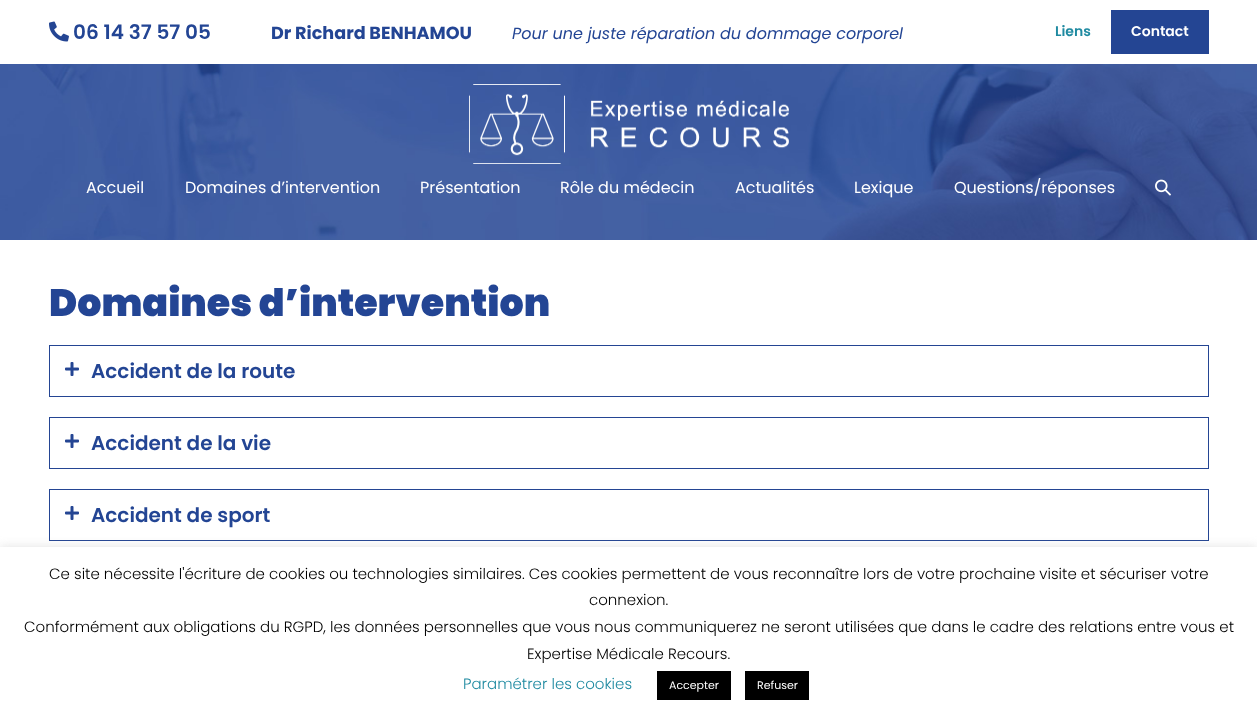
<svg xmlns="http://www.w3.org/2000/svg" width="1257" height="717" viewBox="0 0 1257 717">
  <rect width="100%" height="100%" fill="rgb(255,255,255)"/>
  <image x="49" y="21" width="20" height="21" href="pic1.png"/>
  <text x="73" y="39" font-family="Poppins" font-size="20" font-weight="600" fill="rgb(35,69,148)">06 14 37 57 05</text>
  <text x="271" y="39" font-family="Poppins" font-size="17.6" font-weight="bold" fill="rgb(35,69,148)">Dr Richard BENHAMOU</text>
  <text x="512" y="39" font-family="Poppins" font-size="16" font-style="italic" fill="rgb(35,69,148)">Pour une juste réparation du dommage corporel</text>
  <text x="1055" y="36" font-family="Poppins" font-size="14" font-weight="600" fill="rgb(31,138,161)">Liens</text>
  <rect x="1111" y="10" width="98" height="44" fill="rgb(36,69,147)"/>
  <text x="1131" y="36" font-family="Poppins" font-size="14" font-weight="600" fill="rgb(255,255,255)">Contact</text>
  <image x="0" y="64" width="1257" height="176" href="pic2.png"/>
  <image x="469" y="84" width="320" height="80" href="pic3.png"/>
  <g font-family="Poppins" font-size="16" fill="rgb(255,255,255)">
    <text x="86" y="193">Accueil</text>
    <text x="185" y="193">Domaines d’intervention</text>
    <text x="420" y="193">Présentation</text>
    <text x="560" y="193">Rôle du médecin</text>
    <text x="735" y="193">Actualités</text>
    <text x="854" y="193">Lexique</text>
    <text x="954" y="193">Questions/réponses</text>
  </g>
  <image x="1155" y="179" width="16" height="17" href="pic4.png"/>
  <text x="49" y="316" font-family="Poppins" font-size="38" font-weight="900" fill="rgb(35,69,148)">Domaines d’intervention</text>
  <rect x="49.5" y="345.5" width="1159" height="51" fill="none" stroke="rgb(36,69,147)"/>
  <image x="65" y="362" width="14" height="14" href="pic5.png"/>
  <text x="91" y="378" font-family="Poppins" font-size="20" font-weight="600" fill="rgb(35,69,148)">Accident de la route</text>
  <rect x="49.5" y="417.5" width="1159" height="51" fill="none" stroke="rgb(36,69,147)"/>
  <image x="65" y="434" width="14" height="14" href="pic5.png"/>
  <text x="91" y="450" font-family="Poppins" font-size="20" font-weight="600" fill="rgb(35,69,148)">Accident de la vie</text>
  <rect x="49.5" y="489.5" width="1159" height="51" fill="none" stroke="rgb(36,69,147)"/>
  <image x="65" y="506" width="14" height="14" href="pic5.png"/>
  <text x="91" y="522" font-family="Poppins" font-size="20" font-weight="600" fill="rgb(35,69,148)">Accident de sport</text>
  <rect x="0" y="546" width="1257" height="170" fill="rgba(172,171,171,0.3)" filter="blur(5px)"/>
  <rect x="0" y="547" width="1257" height="170" fill="rgb(255,255,255)"/>
  <g font-family="Poppins" font-size="15" font-weight="300" fill="rgb(0,0,0)">
    <text x="49" y="579">Ce site nécessite l'écriture de cookies ou technologies similaires. Ces cookies permettent de vous reconnaître lors de votre prochaine visite et sécuriser votre</text>
    <text x="589" y="605">connexion.</text>
    <text x="24" y="632">Conformément aux obligations du RGPD, les données personnelles que vous nous communiquerez ne seront utilisées que dans le cadre des relations entre vous et</text>
    <text x="527" y="659">Expertise Médicale Recours.</text>
  </g>
  <text x="463" y="689" font-family="Poppins" font-size="15" font-weight="300" fill="rgb(31,138,161)">Paramétrer les cookies</text>
  <rect x="657" y="671" width="74" height="29" fill="rgb(0,0,0)"/>
  <text x="669" y="689" font-family="Poppins" font-size="11" fill="rgb(255,255,255)">Accepter</text>
  <rect x="745" y="671" width="64" height="29" fill="rgb(0,0,0)"/>
  <text x="757" y="689" font-family="Poppins" font-size="11" fill="rgb(255,255,255)">Refuser</text>
</svg>
